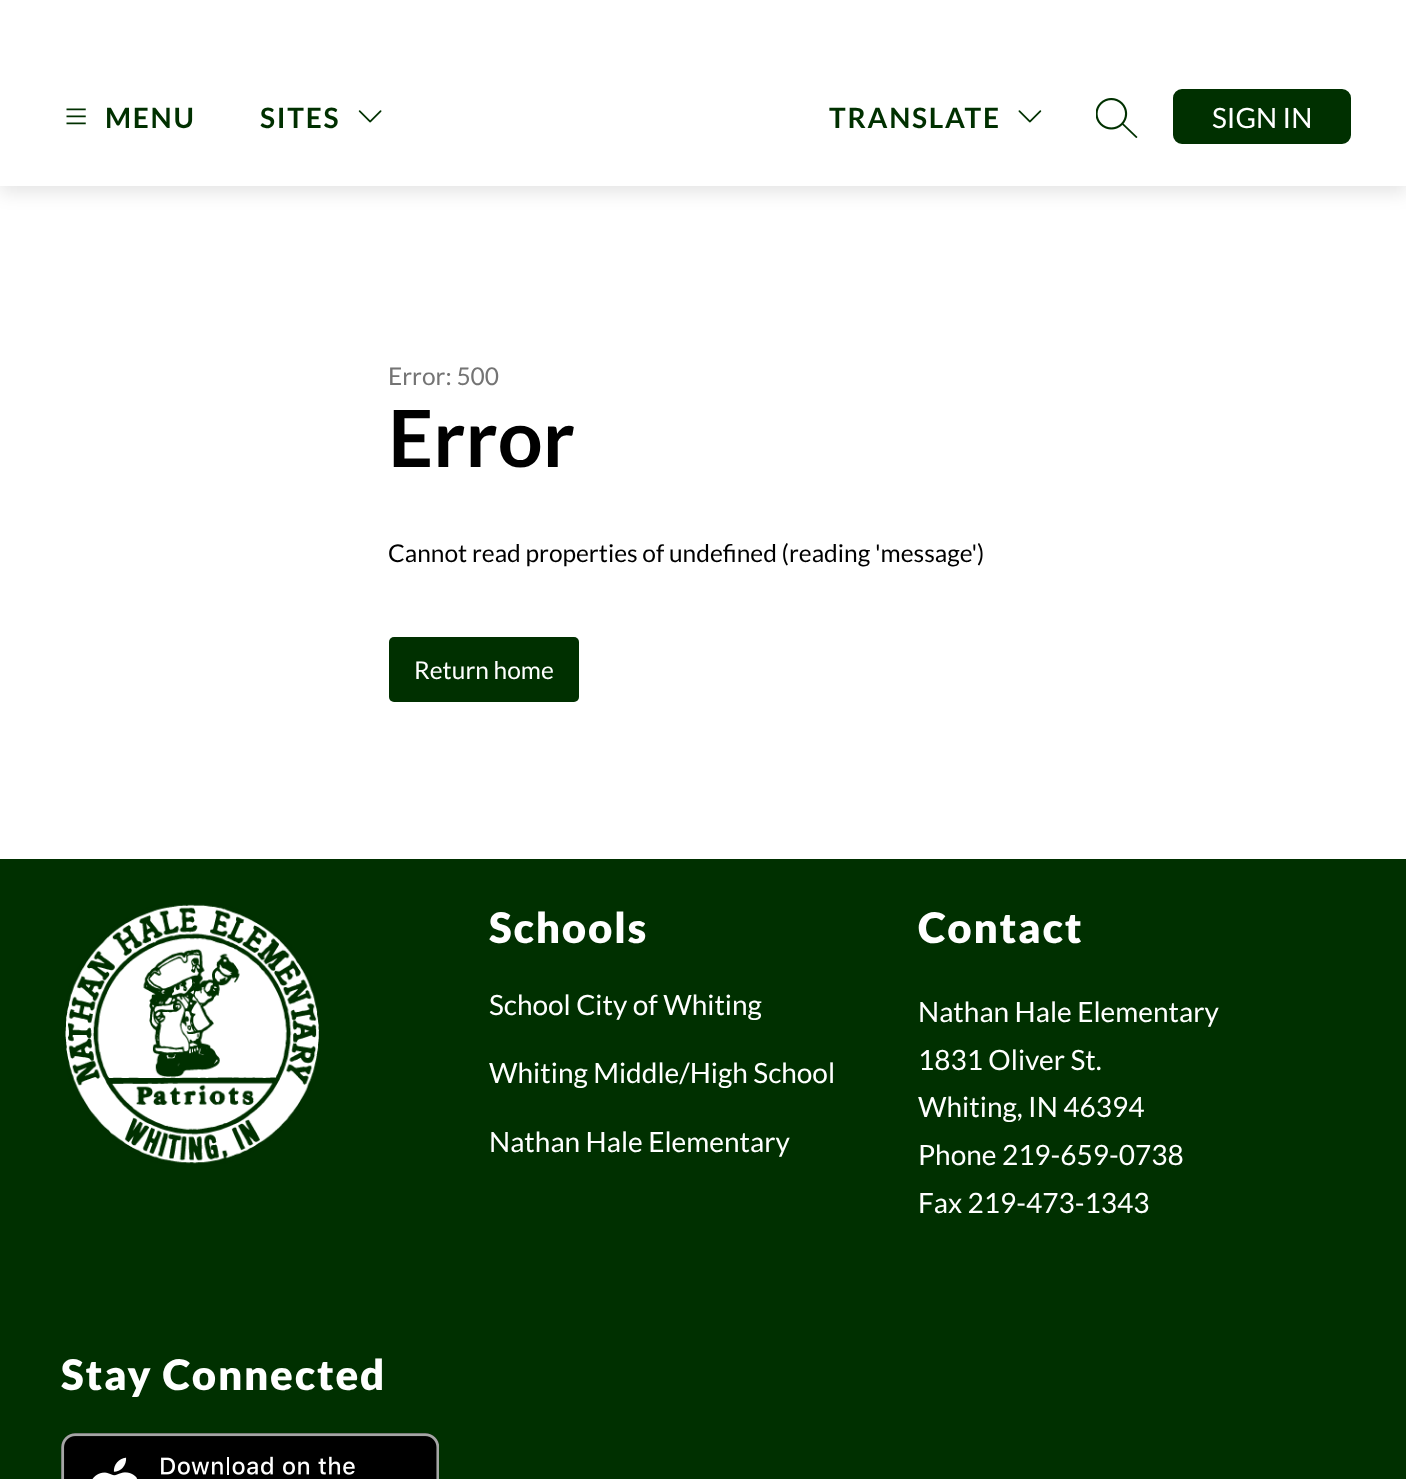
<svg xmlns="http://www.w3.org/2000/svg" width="1406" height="1479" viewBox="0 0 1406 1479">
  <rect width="100%" height="100%" fill="rgb(255,255,255)"/>
  <rect x="0" y="-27" width="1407" height="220" fill="rgba(0,0,0,0.1)" filter="blur(9px)"/>
  <rect x="0" y="0" width="1406" height="186" fill="rgb(255,255,255)"/>
  <image x="66" y="108" width="20" height="17" href="pic1.png"/>
  <g font-family="Lato" font-size="28" font-weight="bold" letter-spacing="1.75" fill="rgb(0,48,0)">
    <text x="105" y="128">MENU</text>
    <text x="260" y="128">SITES</text>
  </g>
  <image x="358" y="110" width="24" height="13" href="pic2.png"/>
  <text x="829" y="128" font-family="Lato" font-size="28" font-weight="bold" letter-spacing="1.75" fill="rgb(0,48,0)">TRANSLATE</text>
  <image x="1018" y="110" width="24" height="13" href="pic3.png"/>
  <image x="1096" y="98" width="42" height="40" href="pic4.png"/>
  <rect x="1174" y="90" width="176" height="53" rx="8" fill="rgb(0,48,0)" stroke="rgb(0,48,0)" stroke-width="2"/>
  <text x="1212" y="128" font-family="Lato" font-size="28" fill="rgb(255,255,255)">SIGN IN</text>
  <text x="388" y="385" font-family="Lato" font-size="24.5" fill="rgb(116,116,116)">Error: 500</text>
  <text x="388" y="467" font-family="Lato" font-size="79" font-weight="bold" fill="rgb(0,0,0)">Error</text>
  <text x="388" y="562" font-family="Lato" font-size="24.5" fill="rgb(0,0,0)">Cannot read properties of undefined (reading 'message')</text>
  <rect x="389" y="637" width="190" height="65" rx="5" fill="rgb(0,48,0)"/>
  <text x="414" y="679" font-family="Lato" font-size="24.5" fill="rgb(255,255,255)">Return home</text>
  <rect x="0" y="859" width="1406" height="620" fill="rgb(0,48,0)"/>
  <image x="65" y="904" width="254" height="260" href="pic5.png"/>
  <text x="489" y="943" font-family="Lato" font-size="42" font-weight="900" letter-spacing="1.75" fill="rgb(255,255,255)">Schools</text>
  <g font-family="Lato" font-size="28" fill="rgb(255,255,255)">
    <text x="489" y="1015">School City of Whiting</text>
    <text x="489" y="1083">Whiting Middle/High School</text>
    <text x="489" y="1152">Nathan Hale Elementary</text>
  </g>
  <text x="918" y="943" font-family="Lato" font-size="42" font-weight="900" letter-spacing="1.75" fill="rgb(255,255,255)">Contact</text>
  <g font-family="Lato" font-size="28" fill="rgb(255,255,255)">
    <text>
      <tspan x="918" y="1022">Nathan Hale Elementary</tspan>
      <tspan x="918" y="1070">1831 Oliver St.</tspan>
      <tspan x="918" y="1117">Whiting, IN 46394</tspan>
      <tspan x="918" y="1165">Phone 219-659-0738</tspan>
      <tspan x="918" y="1213">Fax 219-473-1343</tspan>
    </text>
  </g>
  <text x="61" y="1390" font-family="Lato" font-size="42" font-weight="900" letter-spacing="1.75" fill="rgb(255,255,255)">Stay Connected</text>
  <image x="61" y="1433" width="378" height="46" href="pic6.png"/>
</svg>
